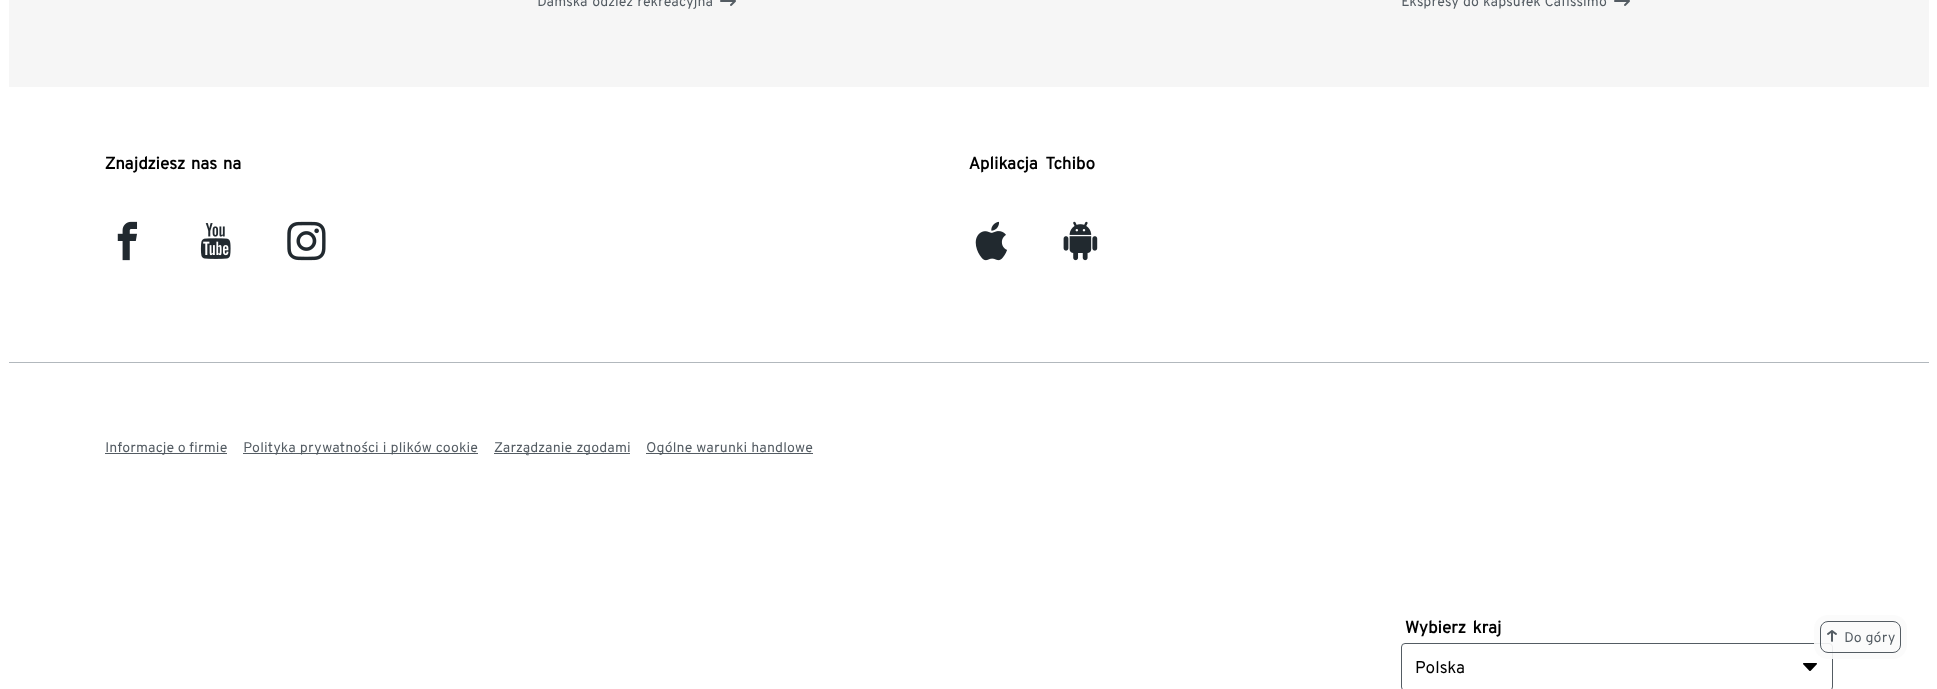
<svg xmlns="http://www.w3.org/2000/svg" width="1937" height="689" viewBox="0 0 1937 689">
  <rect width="100%" height="100%" fill="rgb(255,255,255)"/>
  <rect x="9" y="0" width="1920" height="87" fill="rgb(246,246,246)"/>
  <text x="537" y="6" word-spacing="1" font-family="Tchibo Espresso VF" font-size="14" fill="rgb(84,92,99)">Damska odzież rekreacyjna</text>
  <image x="720" y="0" width="16" height="6" href="pic1.png"/>
  <text x="1401" y="6" word-spacing="0.5" font-family="Tchibo Espresso VF" font-size="14" fill="rgb(84,92,99)">Ekspresy do kapsułek Cafissimo</text>
  <image x="1614" y="0" width="16" height="6" href="pic1.png"/>
  <text x="105" y="169" word-spacing="2" font-family="Tchibo Espresso VF" font-size="17" font-weight="bold" fill="rgb(0,0,0)">Znajdziesz nas na</text>
  <image x="117" y="221" width="21" height="40" href="pic2.png"/>
  <image x="200" y="223" width="31" height="36" href="pic3.png"/>
  <image x="287" y="221" width="39" height="40" href="pic4.png"/>
  <text x="969" y="169" word-spacing="4" font-family="Tchibo Espresso VF" font-size="17" font-weight="bold" fill="rgb(0,0,0)">Aplikacja Tchibo</text>
  <image x="975" y="221" width="32" height="40" href="pic5.png"/>
  <image x="1063" y="221" width="35" height="40" href="pic6.png"/>
  <rect x="9" y="362" width="1920" height="1" fill="rgb(178,184,189)"/>
  <rect x="105" y="453" width="122" height="1" fill="rgb(84,92,99)"/>
  <text x="105" y="452" font-family="Tchibo Espresso VF" font-size="14" fill="rgb(84,92,99)">Informacje o firmie</text>
  <rect x="243" y="453" width="235" height="1" fill="rgb(84,92,99)"/>
  <text x="243" y="452" word-spacing="0.5" font-family="Tchibo Espresso VF" font-size="14" fill="rgb(84,92,99)">Polityka prywatności i plików cookie</text>
  <rect x="494" y="453" width="136" height="1" fill="rgb(84,92,99)"/>
  <text x="494" y="452" word-spacing="1" font-family="Tchibo Espresso VF" font-size="14" fill="rgb(84,92,99)">Zarządzanie zgodami</text>
  <rect x="646" y="453" width="167" height="1" fill="rgb(84,92,99)"/>
  <text x="646" y="452" word-spacing="0.5" font-family="Tchibo Espresso VF" font-size="14" fill="rgb(84,92,99)">Ogólne warunki handlowe</text>
  <text x="1405" y="633" word-spacing="3" font-family="Tchibo Espresso VF" font-size="17" font-weight="bold" fill="rgb(0,0,0)">Wybierz kraj</text>
  <rect x="1401.5" y="643.5" width="431" height="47" rx="3.5" fill="none" stroke="rgb(84,92,99)"/>
  <text x="1415" y="673" font-family="'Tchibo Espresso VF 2'" font-size="17" fill="rgb(0,0,0)">Polska</text>
  <image x="1803" y="663" width="14" height="8" href="pic7.png"/>
  <rect x="1814" y="615" width="93" height="44" rx="14" fill="rgba(251,251,251,0.9)"/>
  <rect x="1820.5" y="621.5" width="80" height="31" rx="7.5" fill="none" stroke="rgb(84,92,99)"/>
  <image x="1827" y="630" width="10" height="12" href="pic8.png"/>
  <text x="1844" y="642" font-family="Tchibo Espresso VF" font-size="14" fill="rgb(84,92,99)">Do góry</text>
</svg>
